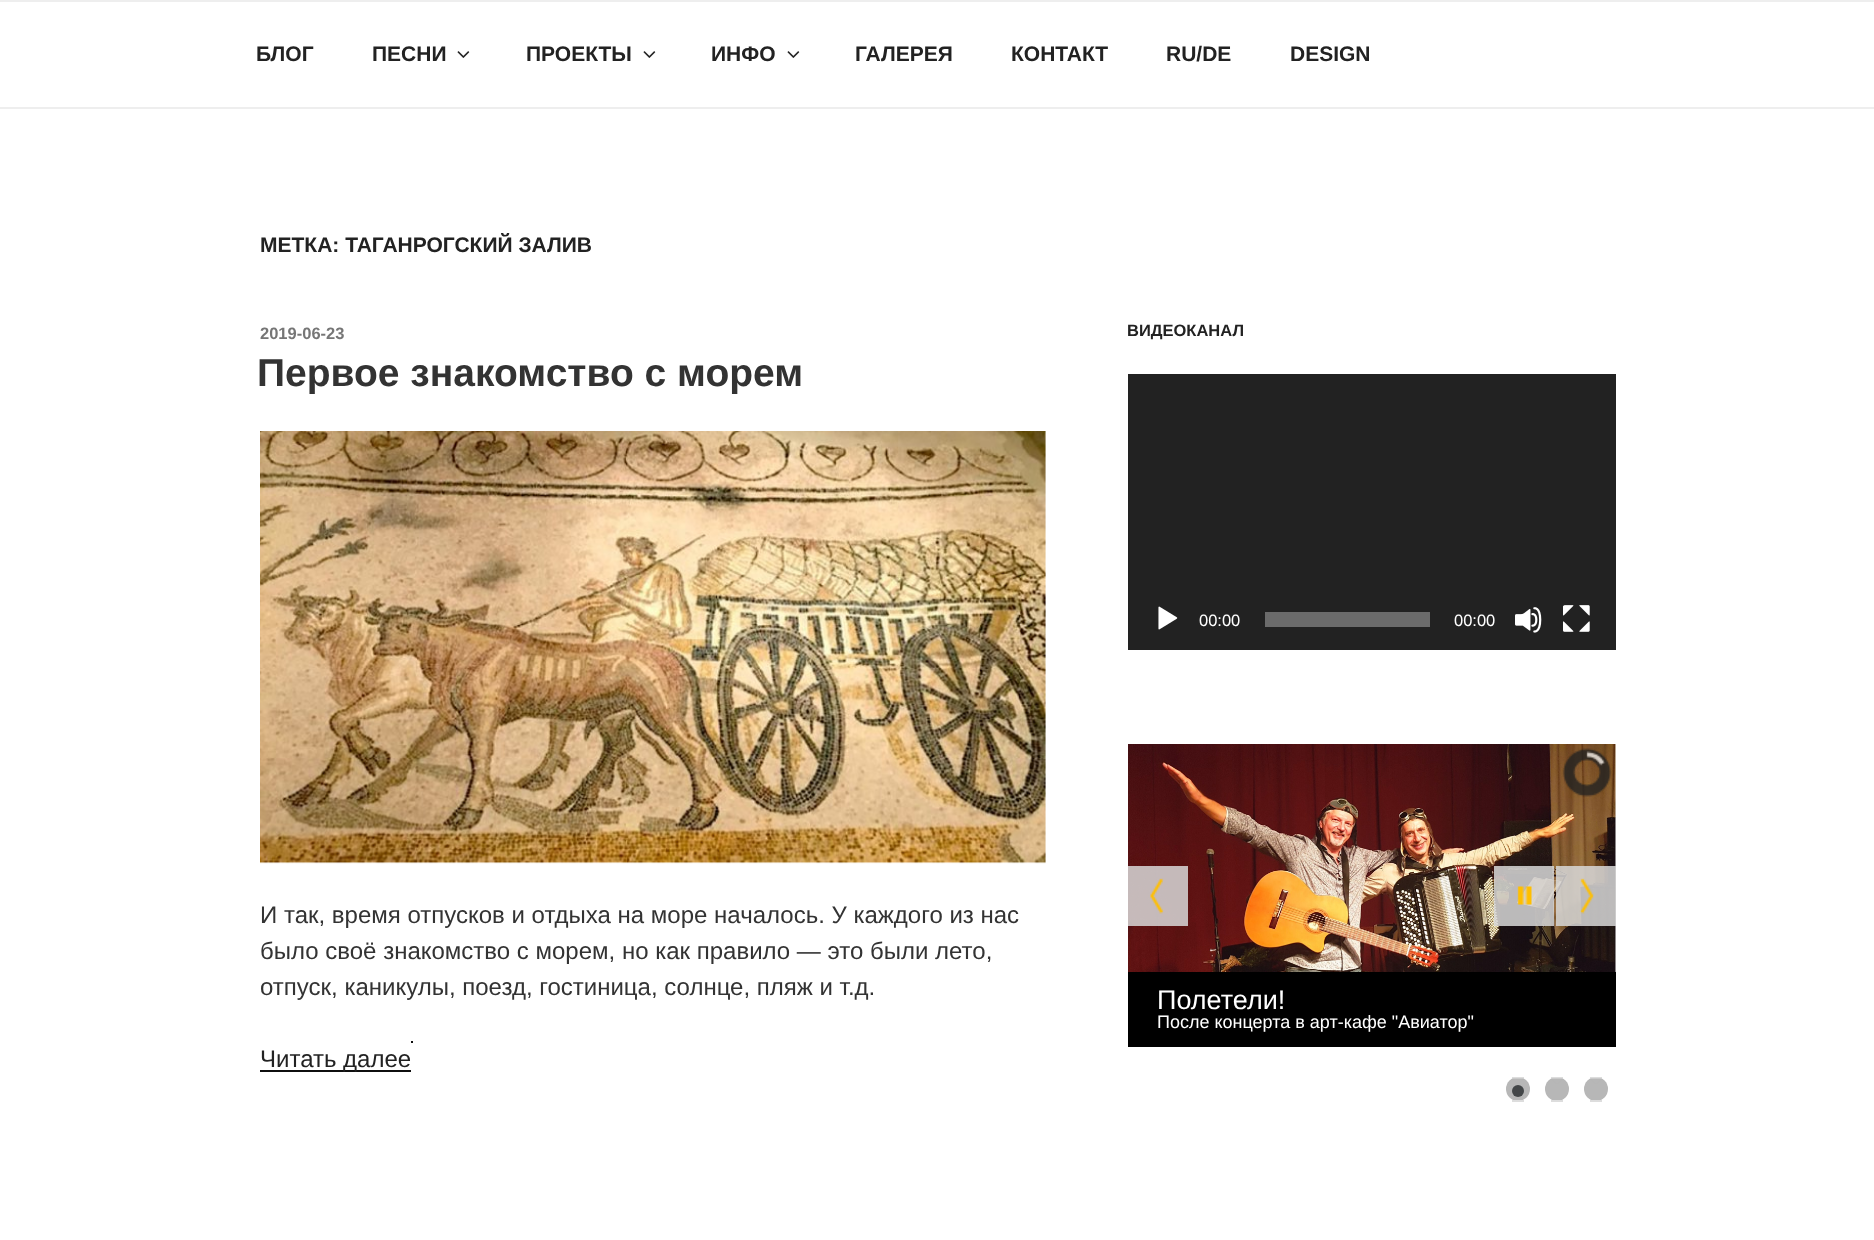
<svg xmlns="http://www.w3.org/2000/svg" width="1874" height="1240" viewBox="0 0 1874 1240">
  <rect width="100%" height="100%" fill="rgb(255,255,255)"/>
  <rect x="0" y="0" width="1874" height="2" fill="rgb(238,238,238)"/>
  <rect x="0" y="107" width="1874" height="2" fill="rgb(238,238,238)"/>
  <g font-family="Liberation Sans" font-size="21" font-weight="bold" fill="rgb(34,34,34)">
    <text x="256" y="61">БЛОГ</text>
    <text x="372" y="61">ПЕСНИ</text>
  </g>
  <image x="457" y="51" width="13" height="7" href="pic1.png"/>
  <text x="526" y="61" font-family="Liberation Sans" font-size="21" font-weight="bold" fill="rgb(34,34,34)">ПРОЕКТЫ</text>
  <image x="643" y="51" width="13" height="7" href="pic1.png"/>
  <text x="711" y="61" font-family="Liberation Sans" font-size="21" font-weight="bold" fill="rgb(34,34,34)">ИНФО</text>
  <image x="787" y="51" width="13" height="7" href="pic1.png"/>
  <g font-family="Liberation Sans" font-size="21" font-weight="bold" fill="rgb(34,34,34)">
    <text x="855" y="61">ГАЛЕРЕЯ</text>
    <text x="1011" y="61">КОНТАКТ</text>
    <text x="1166" y="61">RU/DE</text>
    <text x="1290" y="61">DESIGN</text>
    <text x="260" y="252">МЕТКА: ТАГАНРОГСКИЙ ЗАЛИВ</text>
  </g>
  <text x="260" y="339" font-family="Liberation Sans" font-size="16.5" font-weight="bold" fill="rgb(118,118,118)">2019-06-23</text>
  <text x="257" y="386" font-family="Liberation Sans" font-size="39" font-weight="bold" fill="rgb(51,51,51)">Первое знакомство с морем</text>
  <image x="260" y="431" width="786" height="433" href="pic2.png"/>
  <g font-family="Liberation Sans" font-size="24" fill="rgb(51,51,51)">
    <text>
      <tspan x="260" y="923">И так, время отпусков и отдыха на море началось. У каждого из нас</tspan>
      <tspan x="260" y="959">было своё знакомство с морем, но как правило — это были лето,</tspan>
      <tspan x="260" y="995">отпуск, каникулы, поезд, гостиница, солнце, пляж и т.д.</tspan>
    </text>
  </g>
  <rect x="260" y="1070" width="151" height="2" fill="rgb(15,15,15)"/>
  <text x="260" y="1067" font-family="Liberation Sans" font-size="24" fill="rgb(34,34,34)">Читать далее</text>
  <rect x="411" y="1041" width="2" height="2" fill="rgb(15,15,15)"/>
  <text x="1127" y="336" font-family="Liberation Sans" font-size="16.5" font-weight="bold" fill="rgb(34,34,34)">ВИДЕОКАНАЛ</text>
  <rect x="1128" y="374" width="488" height="276" fill="rgb(34,34,34)"/>
  <image x="1158" y="606" width="20" height="24" href="pic3.png"/>
  <text x="1199" y="626" font-family="Liberation Sans" font-size="16.5" fill="rgb(255,255,255)">00:00</text>
  <rect x="1265" y="612" width="165" height="15" fill="rgb(107,107,107)"/>
  <text x="1454" y="626" font-family="Liberation Sans" font-size="16.5" fill="rgb(255,255,255)">00:00</text>
  <image x="1515" y="607" width="27" height="26" href="pic4.png"/>
  <image x="1563" y="605" width="27" height="27" href="pic5.png"/>
  <image x="1128" y="744" width="488" height="228" href="pic6.png"/>
  <image x="1562" y="748" width="50" height="49" href="pic7.png"/>
  <rect x="1128" y="866" width="60" height="60" fill="rgba(216,216,216,0.85)"/>
  <image x="1150" y="878" width="14" height="36" href="pic8.png"/>
  <rect x="1494" y="866" width="60" height="60" fill="rgba(216,216,216,0.85)"/>
  <image x="1517" y="886" width="15" height="19" href="pic9.png"/>
  <rect x="1556" y="866" width="60" height="60" fill="rgba(216,216,216,0.85)"/>
  <image x="1579" y="878" width="15" height="36" href="pic10.png"/>
  <rect x="1128" y="972" width="488" height="75" fill="rgb(0,0,0)"/>
  <text x="1157" y="1009" font-family="Liberation Sans" font-size="27" fill="rgb(255,255,255)">Полетели!</text>
  <text x="1157" y="1028" font-family="Liberation Sans" font-size="18" fill="rgb(255,255,255)">После концерта в арт-кафе "Авиатор"</text>
  <circle cx="1518" cy="1089" r="12" fill="rgb(183,183,183)"/>
  <rect x="1512" y="1077" width="12" height="2" fill="rgb(221,221,221)"/>
  <rect x="1512" y="1100" width="12" height="2" fill="rgb(221,221,221)"/>
  <path d="M1512 1078.5H1524L1518 1084.5Z" fill="rgb(183,183,183)"/>
  <circle cx="1518" cy="1091" r="6" fill="rgb(67,70,72)"/>
  <circle cx="1557" cy="1089" r="12" fill="rgb(183,183,183)"/>
  <rect x="1551" y="1077" width="12" height="2" fill="rgb(221,221,221)"/>
  <rect x="1551" y="1100" width="12" height="2" fill="rgb(221,221,221)"/>
  <path d="M1551 1078.5H1563L1557 1084.5Z" fill="rgb(183,183,183)"/>
  <circle cx="1596" cy="1089" r="12" fill="rgb(183,183,183)"/>
  <rect x="1590" y="1077" width="12" height="2" fill="rgb(221,221,221)"/>
  <rect x="1590" y="1100" width="12" height="2" fill="rgb(221,221,221)"/>
  <path d="M1590 1078.5H1602L1596 1084.5Z" fill="rgb(183,183,183)"/>
</svg>
